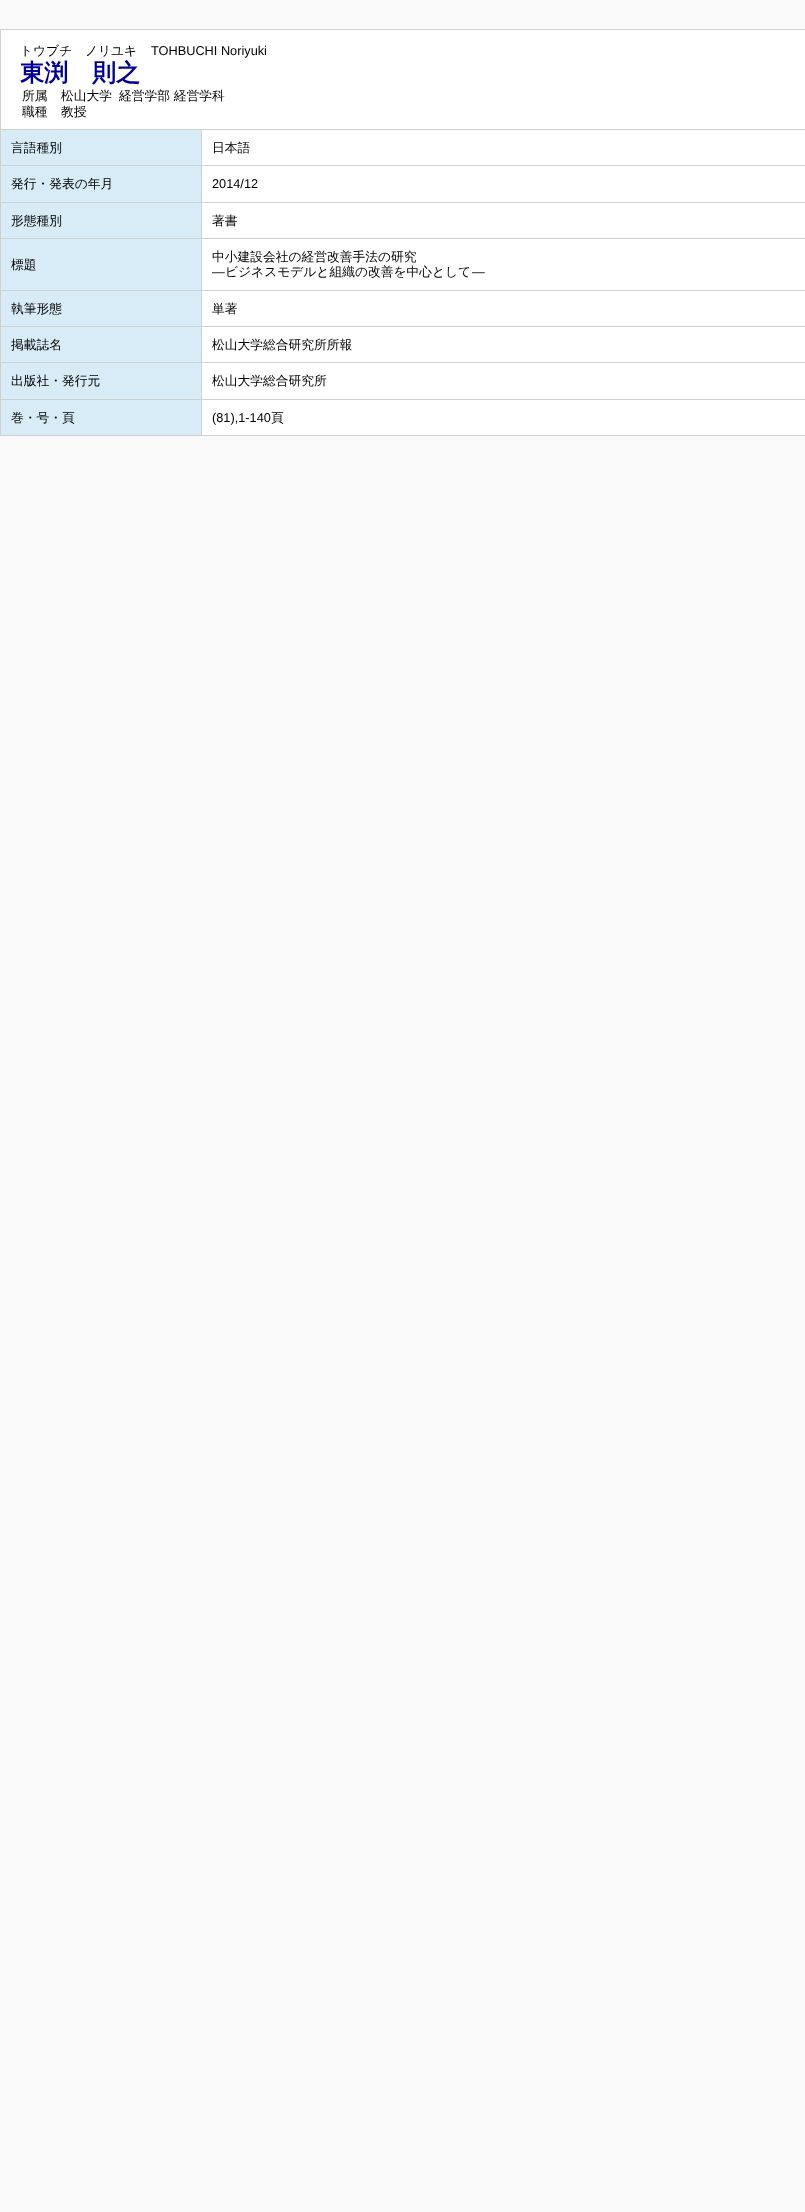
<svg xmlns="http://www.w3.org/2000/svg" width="805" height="2212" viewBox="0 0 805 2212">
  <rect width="100%" height="100%" fill="rgb(249,249,249)"/>
  <rect x="0" y="29" width="805" height="407" fill="rgb(208,208,208)"/>
  <rect x="1" y="30" width="804" height="99" fill="rgb(255,255,255)"/>
  <text x="20" y="55" font-family="WenQuanYi Zen Hei" font-size="12.75" font-weight="500" fill="rgb(0,0,0)">トウブチ　ノリユキ</text>
  <text x="151" y="55" font-family="Liberation Sans" font-size="12.75" fill="rgb(0,0,0)">TOHBUCHI Noriyuki</text>
  <text x="20" y="81" font-family="WenQuanYi Zen Hei" font-size="24" font-weight="bold" fill="rgb(0,0,153)">東渕　則之</text>
  <g font-family="WenQuanYi Zen Hei" font-size="12.75" font-weight="500" fill="rgb(0,0,0)">
    <text x="22" y="100">所属</text>
    <text x="61" y="100">松山大学</text>
    <text x="119" y="100">経営学部 経営学科</text>
    <text x="22" y="116">職種</text>
    <text x="61" y="116">教授</text>
  </g>
  <rect x="1" y="130" width="200" height="35" fill="rgb(216,236,248)"/>
  <text x="11" y="152" font-family="WenQuanYi Zen Hei" font-size="12.75" font-weight="500" fill="rgb(0,0,0)">言語種別</text>
  <rect x="202" y="130" width="603" height="35" fill="rgb(255,255,255)"/>
  <text x="212" y="152" font-family="WenQuanYi Zen Hei" font-size="12.75" font-weight="500" fill="rgb(0,0,0)">日本語</text>
  <rect x="1" y="166" width="200" height="36" fill="rgb(216,236,248)"/>
  <text x="11" y="188" font-family="WenQuanYi Zen Hei" font-size="12.75" font-weight="500" fill="rgb(0,0,0)">発行・発表の年月</text>
  <rect x="202" y="166" width="603" height="36" fill="rgb(255,255,255)"/>
  <text x="212" y="188" font-family="Liberation Sans" font-size="12.75" fill="rgb(0,0,0)">2014/12</text>
  <rect x="1" y="203" width="200" height="35" fill="rgb(216,236,248)"/>
  <text x="11" y="225" font-family="WenQuanYi Zen Hei" font-size="12.75" font-weight="500" fill="rgb(0,0,0)">形態種別</text>
  <rect x="202" y="203" width="603" height="35" fill="rgb(255,255,255)"/>
  <text x="212" y="225" font-family="WenQuanYi Zen Hei" font-size="12.75" font-weight="500" fill="rgb(0,0,0)">著書</text>
  <rect x="1" y="239" width="200" height="51" fill="rgb(216,236,248)"/>
  <text x="11" y="269" font-family="WenQuanYi Zen Hei" font-size="12.75" font-weight="500" fill="rgb(0,0,0)">標題</text>
  <rect x="202" y="239" width="603" height="51" fill="rgb(255,255,255)"/>
  <text x="212" y="261" font-family="WenQuanYi Zen Hei" font-size="12.75" font-weight="500" fill="rgb(0,0,0)">中小建設会社の経営改善手法の研究</text>
  <text x="212" y="276" font-family="Liberation Sans" font-size="12.75" fill="rgb(0,0,0)">―</text>
  <text x="225" y="276" font-family="WenQuanYi Zen Hei" font-size="12.75" font-weight="500" fill="rgb(0,0,0)">ビジネスモデルと組織の改善を中心として</text>
  <text x="472" y="276" font-family="Liberation Sans" font-size="12.75" fill="rgb(0,0,0)">―</text>
  <rect x="1" y="291" width="200" height="35" fill="rgb(216,236,248)"/>
  <text x="11" y="313" font-family="WenQuanYi Zen Hei" font-size="12.75" font-weight="500" fill="rgb(0,0,0)">執筆形態</text>
  <rect x="202" y="291" width="603" height="35" fill="rgb(255,255,255)"/>
  <text x="212" y="313" font-family="WenQuanYi Zen Hei" font-size="12.75" font-weight="500" fill="rgb(0,0,0)">単著</text>
  <rect x="1" y="327" width="200" height="35" fill="rgb(216,236,248)"/>
  <text x="11" y="349" font-family="WenQuanYi Zen Hei" font-size="12.75" font-weight="500" fill="rgb(0,0,0)">掲載誌名</text>
  <rect x="202" y="327" width="603" height="35" fill="rgb(255,255,255)"/>
  <text x="212" y="349" font-family="WenQuanYi Zen Hei" font-size="12.75" font-weight="500" fill="rgb(0,0,0)">松山大学総合研究所所報</text>
  <rect x="1" y="363" width="200" height="36" fill="rgb(216,236,248)"/>
  <text x="11" y="385" font-family="WenQuanYi Zen Hei" font-size="12.75" font-weight="500" fill="rgb(0,0,0)">出版社・発行元</text>
  <rect x="202" y="363" width="603" height="36" fill="rgb(255,255,255)"/>
  <text x="212" y="385" font-family="WenQuanYi Zen Hei" font-size="12.75" font-weight="500" fill="rgb(0,0,0)">松山大学総合研究所</text>
  <rect x="1" y="400" width="200" height="35" fill="rgb(216,236,248)"/>
  <text x="11" y="422" font-family="WenQuanYi Zen Hei" font-size="12.75" font-weight="500" fill="rgb(0,0,0)">巻・号・頁</text>
  <rect x="202" y="400" width="603" height="35" fill="rgb(255,255,255)"/>
  <text x="212" y="422" font-family="Liberation Sans" font-size="12.75" fill="rgb(0,0,0)">(81),1-140</text>
  <text x="271" y="422" font-family="WenQuanYi Zen Hei" font-size="12.75" font-weight="500" fill="rgb(0,0,0)">頁</text>
</svg>
